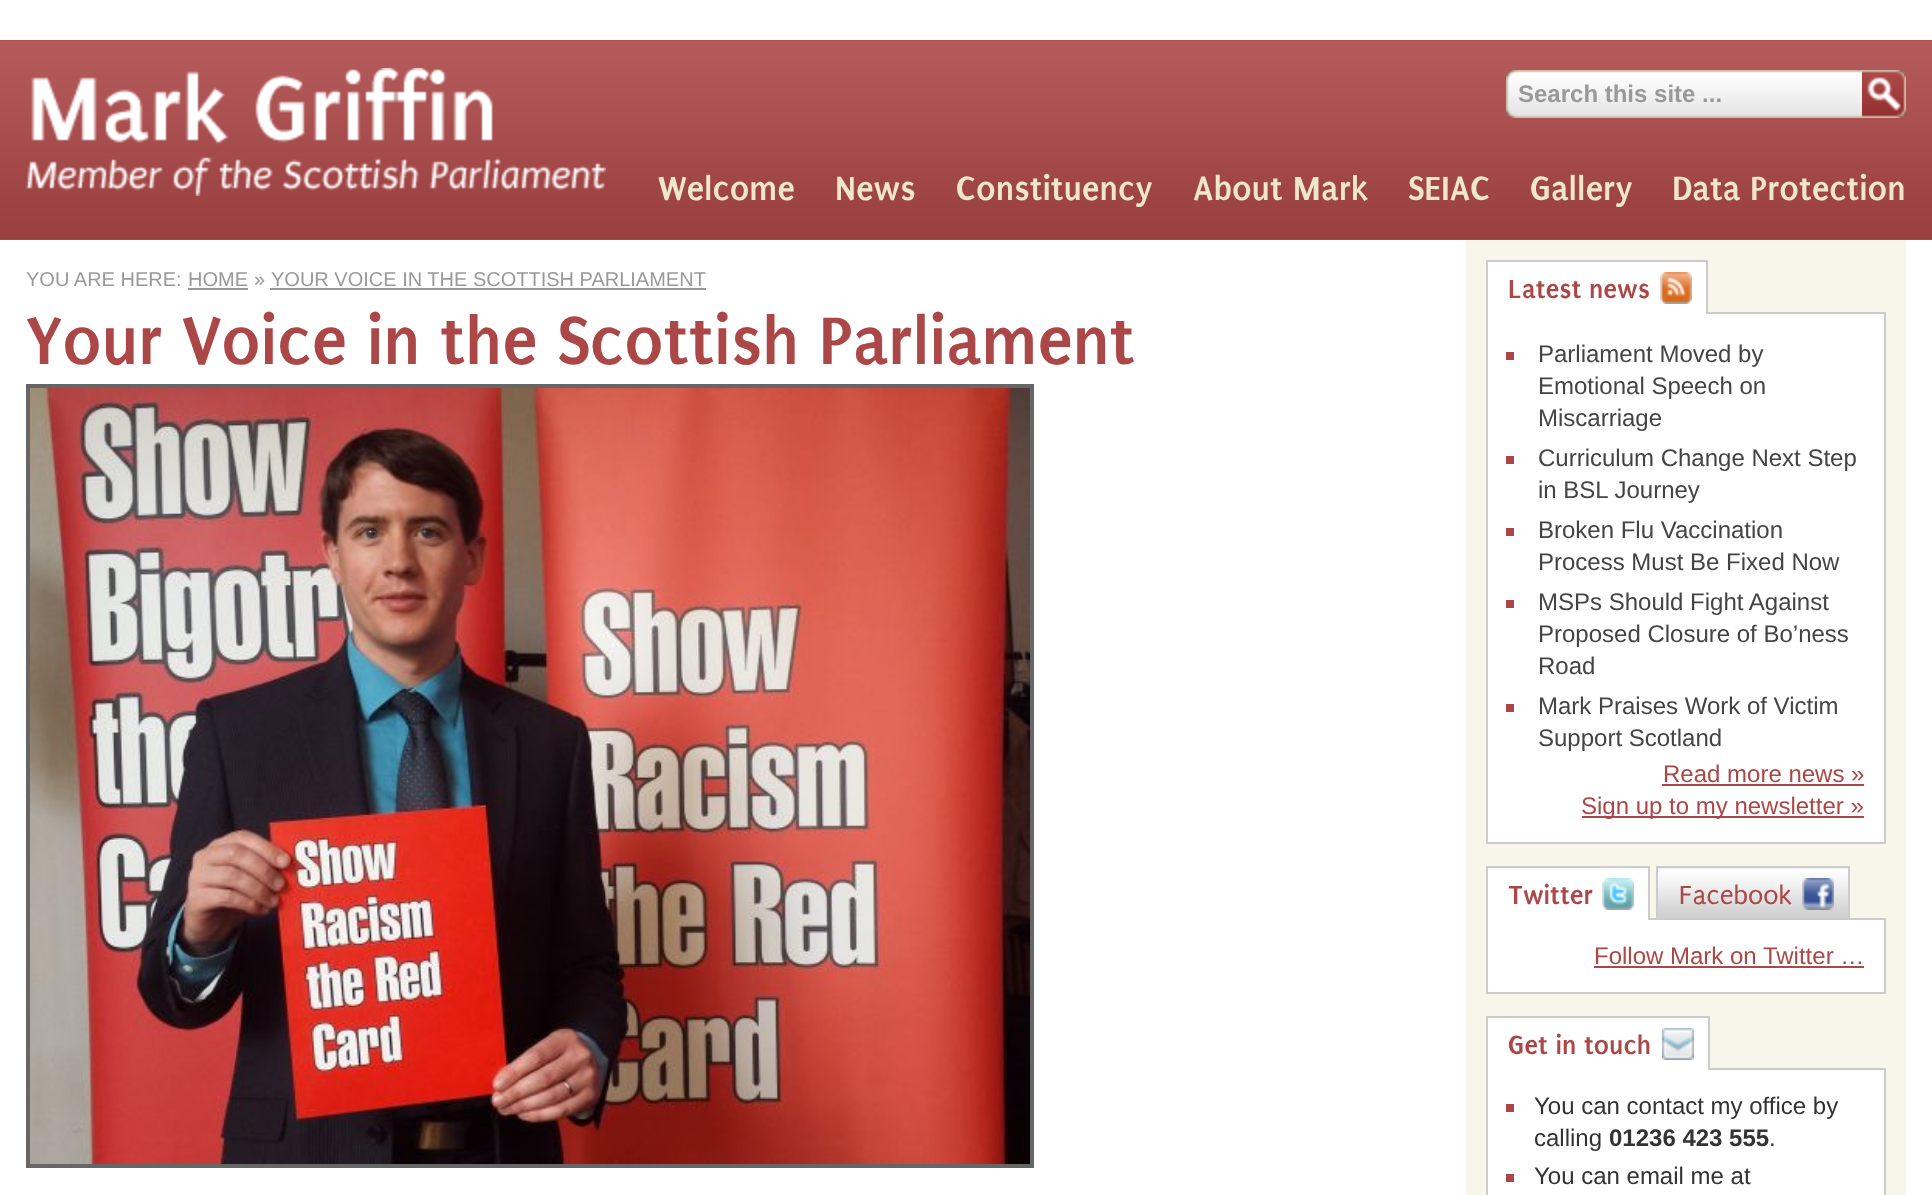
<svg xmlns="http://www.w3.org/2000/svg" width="1932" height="1195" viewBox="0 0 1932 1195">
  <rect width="100%" height="100%" fill="rgb(255,255,255)"/>
  <image x="1465" y="240" width="441" height="955" href="pic1.png"/>
  <image x="0" y="40" width="1932" height="200" href="pic2.png"/>
  <image x="26" y="68" width="580" height="128" href="pic3.png"/>
  <image x="1506" y="70" width="400" height="48" href="pic4.png"/>
  <text x="1518" y="102" font-family="Liberation Sans" font-size="24" font-weight="bold" fill="rgb(153,153,153)">Search this site ...</text>
  <image x="1862" y="70" width="44" height="48" href="pic5.png"/>
  <g font-family="'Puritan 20'" font-size="36" font-weight="bold" fill="rgb(238,231,203)">
    <text x="658" y="200">Welcome</text>
    <text x="835" y="200">News</text>
    <text x="956" y="200">Constituency</text>
    <text x="1193" y="200">About Mark</text>
    <text x="1408" y="200">SEIAC</text>
    <text x="1530" y="200">Gallery</text>
    <text x="1672" y="200">Data Protection</text>
  </g>
  <g font-family="Liberation Sans" font-size="20" fill="rgb(153,153,153)">
    <text x="26" y="286">YOU ARE HERE:</text>
    <text x="188" y="286">HOME</text>
  </g>
  <rect x="188" y="288" width="60" height="2" fill="rgb(153,153,153)"/>
  <g font-family="Liberation Sans" font-size="20" fill="rgb(153,153,153)">
    <text x="254" y="286">»</text>
    <text x="271" y="286">YOUR VOICE IN THE SCOTTISH PARLIAMENT</text>
  </g>
  <rect x="270" y="288" width="436" height="2" fill="rgb(153,153,153)"/>
  <text x="26" y="364" font-family="'Puritan 20'" font-size="72" font-weight="bold" fill="rgb(172,71,71)">Your Voice in the Scottish Parliament</text>
  <rect x="28" y="386" width="1004" height="780" fill="none" stroke="rgb(102,102,102)" stroke-width="4"/>
  <image x="30" y="388" width="1000" height="776" href="pic6.png"/>
  <rect x="1487" y="313" width="398" height="530" fill="rgb(255,255,255)" stroke="rgb(204,204,204)" stroke-width="2"/>
  <rect x="1488" y="262" width="218" height="52" fill="rgb(255,255,255)"/>
  <rect x="1486" y="260" width="222" height="2" fill="rgb(204,204,204)"/>
  <rect x="1706" y="260" width="2" height="54" fill="rgb(204,204,204)"/>
  <rect x="1486" y="260" width="2" height="54" fill="rgb(204,204,204)"/>
  <text x="1508" y="298" font-family="'Puritan 20'" font-size="28" font-weight="bold" fill="rgb(172,71,71)">Latest news</text>
  <image x="1660" y="272" width="32" height="32" href="pic7.png"/>
  <rect x="1506" y="352" width="8" height="8" fill="rgb(172,71,71)"/>
  <g font-family="Liberation Sans" font-size="24" fill="rgb(68,68,68)">
    <text>
      <tspan x="1538" y="362">Parliament Moved by</tspan>
      <tspan x="1538" y="394">Emotional Speech on</tspan>
      <tspan x="1538" y="426">Miscarriage</tspan>
    </text>
  </g>
  <rect x="1506" y="456" width="8" height="8" fill="rgb(172,71,71)"/>
  <g font-family="Liberation Sans" font-size="24" fill="rgb(68,68,68)">
    <text>
      <tspan x="1538" y="466">Curriculum Change Next Step</tspan>
      <tspan x="1538" y="498">in BSL Journey</tspan>
    </text>
  </g>
  <rect x="1506" y="528" width="8" height="8" fill="rgb(172,71,71)"/>
  <g font-family="Liberation Sans" font-size="24" fill="rgb(68,68,68)">
    <text>
      <tspan x="1538" y="538">Broken Flu Vaccination</tspan>
      <tspan x="1538" y="570">Process Must Be Fixed Now</tspan>
    </text>
  </g>
  <rect x="1506" y="600" width="8" height="8" fill="rgb(172,71,71)"/>
  <g font-family="Liberation Sans" font-size="24" fill="rgb(68,68,68)">
    <text>
      <tspan x="1538" y="610">MSPs Should Fight Against</tspan>
      <tspan x="1538" y="642">Proposed Closure of Bo’ness</tspan>
      <tspan x="1538" y="674">Road</tspan>
    </text>
  </g>
  <rect x="1506" y="704" width="8" height="8" fill="rgb(172,71,71)"/>
  <g font-family="Liberation Sans" font-size="24" fill="rgb(68,68,68)">
    <text>
      <tspan x="1538" y="714">Mark Praises Work of Victim</tspan>
      <tspan x="1538" y="746">Support Scotland</tspan>
    </text>
  </g>
  <text x="1663" y="782" font-family="Liberation Sans" font-size="24" fill="rgb(172,71,71)">Read more news »</text>
  <rect x="1662" y="784" width="202" height="2" fill="rgb(172,71,71)"/>
  <rect x="1582" y="816" width="282" height="2" fill="rgb(172,71,71)"/>
  <text x="1581" y="814" font-family="Liberation Sans" font-size="24" fill="rgb(172,71,71)">Sign up to my newsletter »</text>
  <rect x="1487" y="919" width="398" height="74" fill="rgb(255,255,255)" stroke="rgb(204,204,204)" stroke-width="2"/>
  <rect x="1488" y="868" width="160" height="52" fill="rgb(255,255,255)"/>
  <rect x="1486" y="866" width="164" height="2" fill="rgb(204,204,204)"/>
  <rect x="1648" y="866" width="2" height="54" fill="rgb(204,204,204)"/>
  <rect x="1486" y="866" width="2" height="54" fill="rgb(204,204,204)"/>
  <text x="1508" y="904" font-family="'Puritan 20'" font-size="28" font-weight="bold" fill="rgb(172,71,71)">Twitter</text>
  <image x="1602" y="878" width="32" height="32" href="pic8.png"/>
  <image x="1658" y="868" width="190" height="50" href="pic9.png"/>
  <rect x="1657" y="867" width="192" height="52" fill="none" stroke="rgb(204,204,204)" stroke-width="2"/>
  <text x="1679" y="904" font-family="'Puritan 20'" font-size="28" fill="rgb(172,71,71)">Facebook</text>
  <image x="1802" y="878" width="32" height="32" href="pic10.png"/>
  <text x="1594" y="964" font-family="Liberation Sans" font-size="24" fill="rgb(172,71,71)">Follow Mark on Twitter …</text>
  <rect x="1594" y="966" width="270" height="2" fill="rgb(172,71,71)"/>
  <rect x="1487" y="1069" width="398" height="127" fill="rgb(255,255,255)" stroke="rgb(204,204,204)" stroke-width="2"/>
  <rect x="1488" y="1018" width="220" height="52" fill="rgb(255,255,255)"/>
  <rect x="1486" y="1016" width="224" height="2" fill="rgb(204,204,204)"/>
  <rect x="1708" y="1016" width="2" height="54" fill="rgb(204,204,204)"/>
  <rect x="1486" y="1016" width="2" height="54" fill="rgb(204,204,204)"/>
  <text x="1508" y="1054" font-family="'Puritan 20'" font-size="28" font-weight="bold" fill="rgb(172,71,71)">Get in touch</text>
  <image x="1662" y="1028" width="32" height="32" href="pic11.png"/>
  <rect x="1506" y="1104" width="8" height="8" fill="rgb(172,71,71)"/>
  <g font-family="Liberation Sans" font-size="24" fill="rgb(51,51,51)">
    <text>
      <tspan x="1534" y="1114">You can contact my office by</tspan>
      <tspan x="1534" y="1146">calling</tspan>
    </text>
  </g>
  <text x="1609" y="1146" font-family="Liberation Sans" font-size="24" font-weight="bold" fill="rgb(51,51,51)">01236 423 555</text>
  <text x="1769" y="1146" font-family="Liberation Sans" font-size="24" fill="rgb(51,51,51)">.</text>
  <rect x="1506" y="1174" width="8" height="8" fill="rgb(172,71,71)"/>
  <text x="1534" y="1184" font-family="Liberation Sans" font-size="24" fill="rgb(51,51,51)">You can email me at</text>
</svg>
